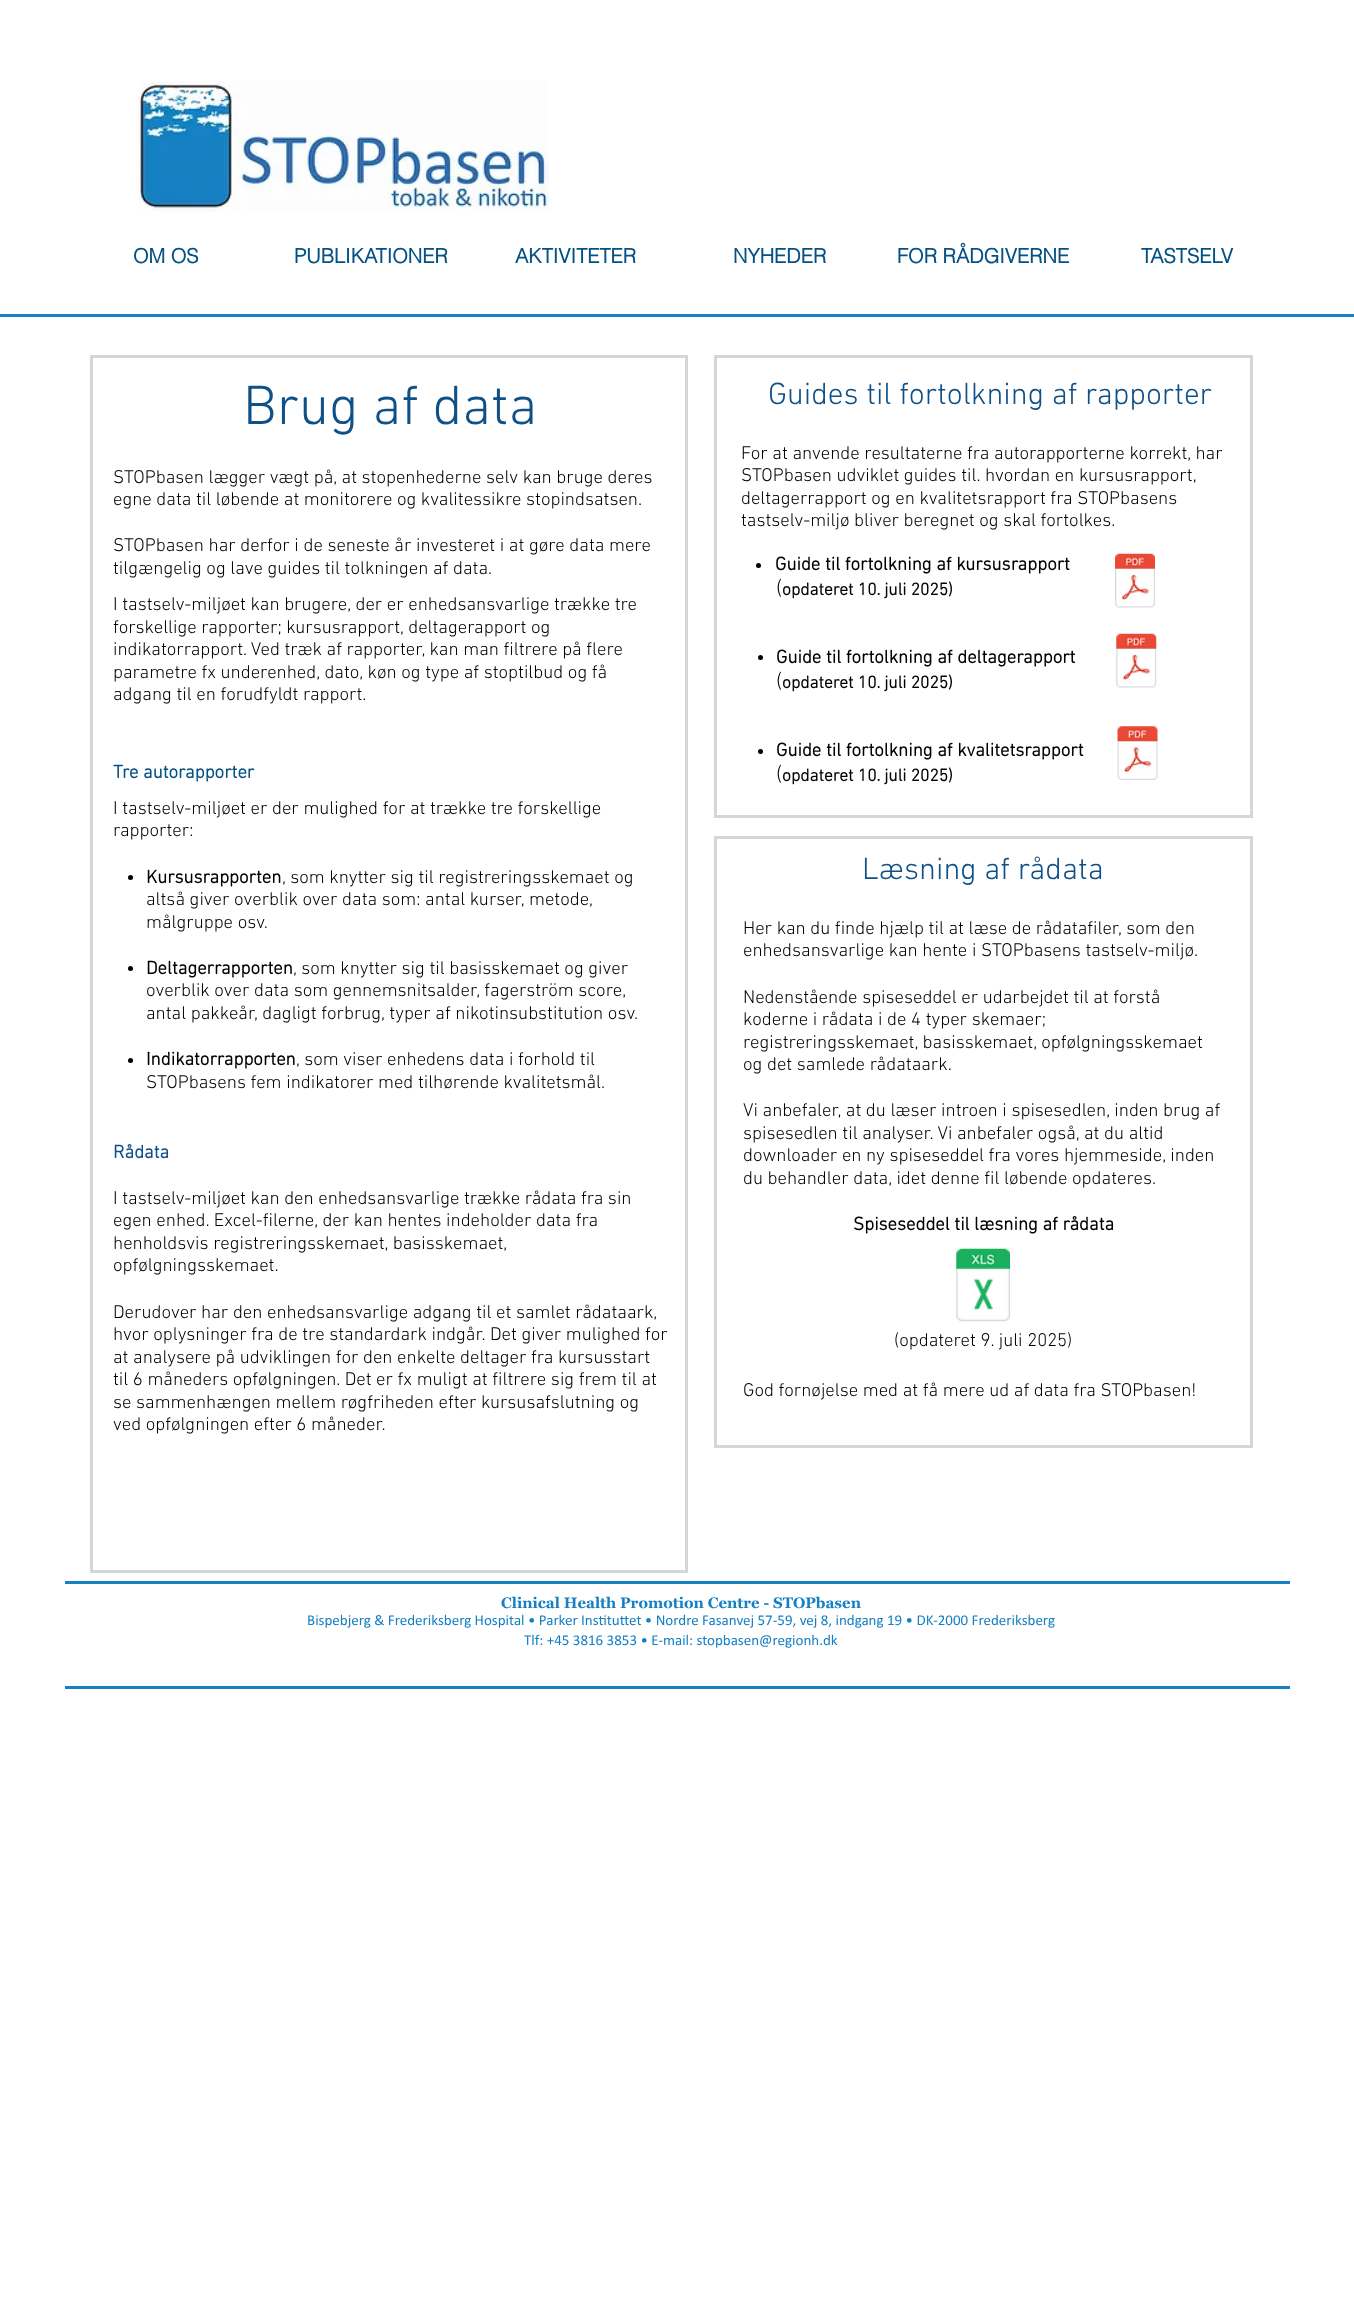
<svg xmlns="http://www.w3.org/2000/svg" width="1354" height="2316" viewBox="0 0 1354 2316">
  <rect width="100%" height="100%" fill="rgb(255,255,255)"/>
  <image x="138" y="81" width="411" height="131" href="pic1.png"/>
  <g font-family="helvetica" font-size="20" font-weight="bold" fill="rgb(4,81,132)">
    <text x="133" y="263">OM OS</text>
    <text x="294" y="263">PUBLIKATIONER</text>
    <text x="515" y="263">AKTIVITETER</text>
    <text x="733" y="263">NYHEDER</text>
    <text x="897" y="263">FOR RÅDGIVERNE</text>
    <text x="1141" y="263">TASTSELV</text>
  </g>
  <rect x="0" y="314" width="1354" height="3" fill="rgb(22,128,196)"/>
  <rect x="91.5" y="356.5" width="595" height="1215" fill="none" stroke="rgb(214,214,214)" stroke-width="3"/>
  <text x="243" y="424" font-family="'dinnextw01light'" font-size="56.25" font-weight="300" fill="rgb(15,80,135)">Brug af data</text>
  <g font-family="'dinnextw01light'" font-size="18.75" font-weight="300" fill="rgb(0,0,0)">
    <text>
      <tspan x="113" y="483">STOPbasen lægger vægt på, at stopenhederne selv kan bruge deres</tspan>
      <tspan x="113" y="505">egne data til løbende at monitorere og kvalitessikre stopindsatsen.</tspan>
    </text>
    <text>
      <tspan x="113" y="551">STOPbasen har derfor i de seneste år investeret i at gøre data mere</tspan>
      <tspan x="113" y="574">tilgængelig og lave guides til tolkningen af data.</tspan>
      <tspan x="113" y="610">I tastselv-miljøet kan brugere, der er enhedsansvarlige trække tre</tspan>
      <tspan x="113" y="633">forskellige rapporter; kursusrapport, deltagerapport og</tspan>
      <tspan x="113" y="655">indikatorrapport. Ved træk af rapporter, kan man filtrere på flere</tspan>
      <tspan x="113" y="678">parametre fx underenhed, dato, køn og type af stoptilbud og få</tspan>
      <tspan x="113" y="700">adgang til en forudfyldt rapport.</tspan>
    </text>
  </g>
  <text x="113" y="778" font-family="'dinnextw01light'" font-size="18.75" font-weight="bold" fill="rgb(4,81,132)">Tre autorapporter</text>
  <g font-family="'dinnextw01light'" font-size="18.75" font-weight="300" fill="rgb(0,0,0)">
    <text>
      <tspan x="113" y="814">I tastselv-miljøet er der mulighed for at trække tre forskellige</tspan>
      <tspan x="113" y="836">rapporter:</tspan>
    </text>
  </g>
  <circle cx="130.5" cy="877.5" r="2.5" fill="rgb(0,0,0)"/>
  <text x="146" y="883" font-family="'dinnextw01light'" font-size="18.75" font-weight="bold" fill="rgb(0,0,0)">Kursusrapporten</text>
  <g font-family="'dinnextw01light'" font-size="18.75" font-weight="300" fill="rgb(0,0,0)">
    <text x="282" y="883">, som knytter sig til registreringsskemaet og</text>
    <text>
      <tspan x="146" y="905">altså giver overblik over data som: antal kurser, metode,</tspan>
      <tspan x="146" y="928">målgruppe osv.</tspan>
    </text>
  </g>
  <circle cx="130.5" cy="968.5" r="2.5" fill="rgb(0,0,0)"/>
  <text x="146" y="974" font-family="'dinnextw01light'" font-size="18.75" font-weight="bold" fill="rgb(0,0,0)">Deltagerrapporten</text>
  <g font-family="'dinnextw01light'" font-size="18.75" font-weight="300" fill="rgb(0,0,0)">
    <text x="293" y="974">, som knytter sig til basisskemaet og giver</text>
    <text>
      <tspan x="146" y="996">overblik over data som gennemsnitsalder, fagerström score,</tspan>
      <tspan x="146" y="1019">antal pakkeår, dagligt forbrug, typer af nikotinsubstitution osv.</tspan>
    </text>
  </g>
  <circle cx="130.5" cy="1060.5" r="2.5" fill="rgb(0,0,0)"/>
  <text x="146" y="1065" font-family="'dinnextw01light'" font-size="18.75" font-weight="bold" fill="rgb(0,0,0)">Indikatorrapporten</text>
  <g font-family="'dinnextw01light'" font-size="18.75" font-weight="300" fill="rgb(0,0,0)">
    <text x="296" y="1065">, som viser enhedens data i forhold til</text>
    <text x="146" y="1088">STOPbasens fem indikatorer med tilhørende kvalitetsmål.</text>
  </g>
  <text x="113" y="1158" font-family="'dinnextw01light'" font-size="18.75" font-weight="bold" fill="rgb(15,80,135)">Rådata</text>
  <g font-family="'dinnextw01light'" font-size="18.75" font-weight="300" fill="rgb(0,0,0)">
    <text>
      <tspan x="113" y="1204">I tastselv-miljøet kan den enhedsansvarlige trække rådata fra sin</tspan>
      <tspan x="113" y="1226">egen enhed. Excel-filerne, der kan hentes indeholder data fra</tspan>
      <tspan x="113" y="1249">henholdsvis registreringsskemaet, basisskemaet,</tspan>
      <tspan x="113" y="1271">opfølgningsskemaet.</tspan>
    </text>
    <text>
      <tspan x="113" y="1318">Derudover har den enhedsansvarlige adgang til et samlet rådataark,</tspan>
      <tspan x="113" y="1340">hvor oplysninger fra de tre standardark indgår. Det giver mulighed for</tspan>
      <tspan x="113" y="1363">at analysere på udviklingen for den enkelte deltager fra kursusstart</tspan>
      <tspan x="113" y="1385">til 6 måneders opfølgningen. Det er fx muligt at filtrere sig frem til at</tspan>
      <tspan x="113" y="1408">se sammenhængen mellem røgfriheden efter kursusafslutning og</tspan>
      <tspan x="113" y="1430">ved opfølgningen efter 6 måneder.</tspan>
    </text>
  </g>
  <rect x="715.5" y="356.5" width="536" height="460" fill="none" stroke="rgb(214,214,214)" stroke-width="3"/>
  <text x="768" y="404" font-family="'dinnextw01light'" font-size="31.25" font-weight="300" fill="rgb(15,80,135)">Guides til fortolkning af rapporter</text>
  <g font-family="'dinnextw01light'" font-size="18.75" font-weight="300" fill="rgb(0,0,0)">
    <text>
      <tspan x="741" y="459">For at anvende resultaterne fra autorapporterne korrekt, har</tspan>
      <tspan x="741" y="481">STOPbasen udviklet guides til.</tspan>
    </text>
    <text x="985" y="481">hvordan en kursusrapport,</text>
    <text>
      <tspan x="741" y="504">deltagerrapport og en kvalitetsrapport fra STOPbasens</tspan>
      <tspan x="741" y="526">tastselv-miljø bliver beregnet og skal fortolkes.</tspan>
    </text>
  </g>
  <circle cx="758.5" cy="565.5" r="2.5" fill="rgb(0,0,0)"/>
  <text x="775" y="570" font-family="'dinnextw01light'" font-size="18.75" font-weight="bold" fill="rgb(0,0,0)">Guide til fortolkning af kursusrapport</text>
  <text x="776" y="595" font-family="'dinnextw01light'" font-size="22" font-weight="300" fill="rgb(0,0,0)">(</text>
  <text x="782" y="595" font-family="'dinnextw01light'" font-size="17.5" font-weight="bold" fill="rgb(0,0,0)">opdateret 10. juli 2025)</text>
  <image x="1115" y="553" width="40" height="55" href="pic2.png"/>
  <circle cx="760.5" cy="657.5" r="2.5" fill="rgb(0,0,0)"/>
  <text x="776" y="663" font-family="'dinnextw01light'" font-size="18.75" font-weight="bold" fill="rgb(0,0,0)">Guide til fortolkning af deltagerapport</text>
  <text x="776" y="688" font-family="'dinnextw01light'" font-size="22" font-weight="300" fill="rgb(0,0,0)">(</text>
  <text x="782" y="688" font-family="'dinnextw01light'" font-size="17.5" font-weight="bold" fill="rgb(0,0,0)">opdateret 10. juli 2025)</text>
  <image x="1116" y="633" width="41" height="55" href="pic3.png"/>
  <circle cx="760.5" cy="751.5" r="2.5" fill="rgb(0,0,0)"/>
  <text x="776" y="756" font-family="'dinnextw01light'" font-size="18.75" font-weight="bold" fill="rgb(0,0,0)">Guide til fortolkning af kvalitetsrapport</text>
  <text x="776" y="781" font-family="'dinnextw01light'" font-size="22" font-weight="300" fill="rgb(0,0,0)">(</text>
  <text x="782" y="781" font-family="'dinnextw01light'" font-size="17.5" font-weight="bold" fill="rgb(0,0,0)">opdateret 10. juli 2025)</text>
  <image x="1117" y="726" width="41" height="54" href="pic4.png"/>
  <rect x="715.5" y="837.5" width="536" height="609" fill="none" stroke="rgb(214,214,214)" stroke-width="3"/>
  <text x="862" y="879" font-family="'dinnextw01light'" font-size="31.25" font-weight="300" fill="rgb(15,80,135)">Læsning af rådata</text>
  <g font-family="'dinnextw01light'" font-size="18.75" font-weight="300" fill="rgb(0,0,0)">
    <text>
      <tspan x="743" y="934">Her kan du finde hjælp til at læse de rådatafiler, som den</tspan>
      <tspan x="743" y="956">enhedsansvarlige kan hente i STOPbasens tastselv-miljø.</tspan>
    </text>
    <text>
      <tspan x="743" y="1003">Nedenstående spiseseddel er udarbejdet til at forstå</tspan>
      <tspan x="743" y="1025">koderne i rådata i de 4 typer skemaer;</tspan>
      <tspan x="743" y="1048">registreringsskemaet, basisskemaet, opfølgningsskemaet</tspan>
      <tspan x="743" y="1070">og det samlede rådataark.</tspan>
    </text>
    <text>
      <tspan x="743" y="1116">Vi anbefaler, at du læser introen i spisesedlen, inden brug af</tspan>
      <tspan x="743" y="1139">spisesedlen til analyser. Vi anbefaler også, at du altid</tspan>
      <tspan x="743" y="1161">downloader en ny spiseseddel fra vores hjemmeside, inden</tspan>
      <tspan x="743" y="1184">du behandler data, idet denne fil løbende opdateres.</tspan>
    </text>
  </g>
  <text x="853" y="1230" font-family="'dinnextw01light'" font-size="18.75" font-weight="bold" fill="rgb(0,0,0)">Spiseseddel til læsning af rådata</text>
  <g font-family="'dinnextw01light'" font-size="18.75" font-weight="300" fill="rgb(0,0,0)">
    <text x="894" y="1346">(opdateret 9. juli 2025)</text>
    <text x="743" y="1396">God fornøjelse med at få mere ud af data fra STOPbasen!</text>
  </g>
  <image x="956" y="1248" width="54" height="74" href="pic5.png"/>
  <rect x="65" y="1581" width="1225" height="3" fill="rgb(22,128,196)"/>
  <text x="501" y="1608" font-family="Georgia" font-size="15" font-weight="bold" fill="rgb(22,128,196)">Clinical Health Promotion Centre - STOPbasen</text>
  <g font-family="Calibri" font-size="15" fill="rgb(22,128,196)">
    <text x="307" y="1625">Bispebjerg &amp; Frederiksberg Hospital • Parker Instituttet • Nordre Fasanvej 57-59, vej 8, indgang 19 • DK-2000 Frederiksberg</text>
    <text x="524" y="1645">Tlf: +45 3816 3853 • E-mail: stopbasen@regionh.dk</text>
  </g>
  <rect x="65" y="1686" width="1225" height="3" fill="rgb(22,128,196)"/>
</svg>
